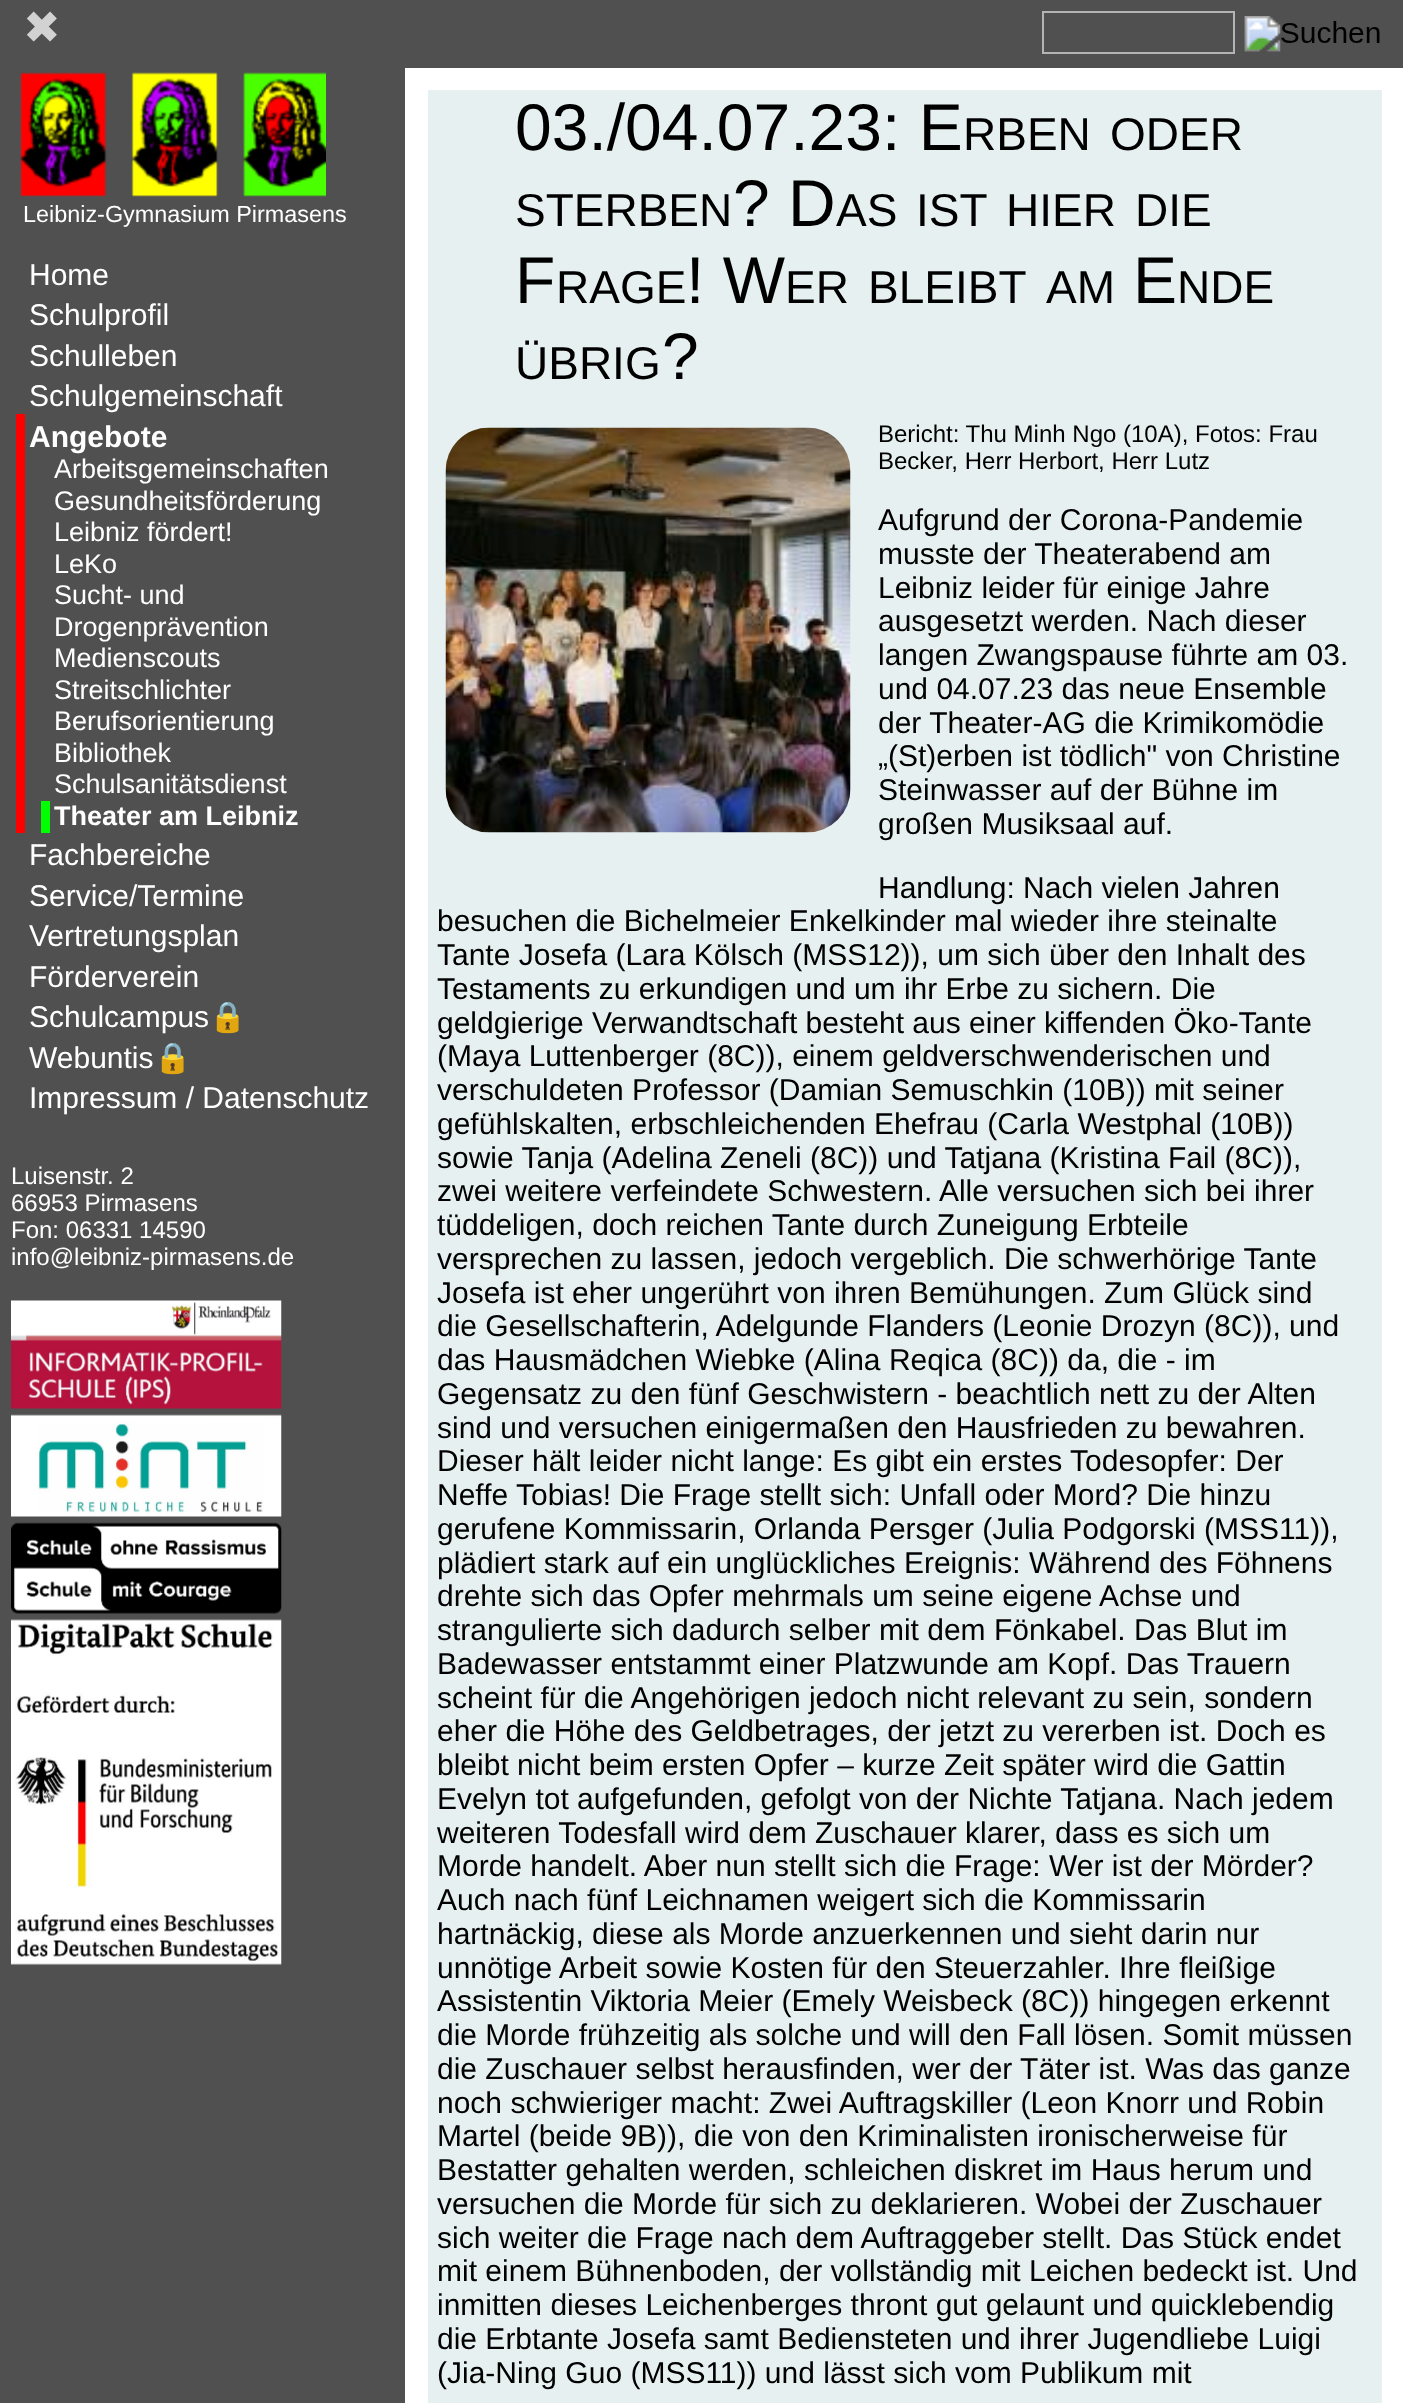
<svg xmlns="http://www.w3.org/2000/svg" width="1403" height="2403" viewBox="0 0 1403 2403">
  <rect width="100%" height="100%" fill="rgb(255,255,255)"/>
  <rect x="0" y="0" width="1403" height="68" fill="rgb(80,80,80)"/>
  <text x="23" y="43" font-family="DejaVu Sans" font-size="45" fill="rgb(210,210,210)">✖</text>
  <rect x="1043" y="12" width="191" height="41" fill="none" stroke="rgb(180,180,180)" stroke-width="2"/>
  <image x="1244" y="16" width="136" height="36" href="pic1.png"/>
  <rect x="0" y="68" width="405" height="2335" fill="rgb(80,80,80)"/>
  <image x="20" y="72" width="306" height="125" href="pic2.png"/>
  <text x="23" y="222" font-family="Liberation Sans" font-size="23.4" fill="rgb(255,255,255)">Leibniz-Gymnasium Pirmasens</text>
  <g font-family="Liberation Sans" font-size="30" fill="rgb(255,255,255)">
    <text>
      <tspan x="29" y="285">Home</tspan>
      <tspan x="29" y="325">Schulprofil</tspan>
      <tspan x="29" y="366">Schulleben</tspan>
      <tspan x="29" y="406">Schulgemeinschaft</tspan>
    </text>
  </g>
  <rect x="16" y="414" width="9" height="419" fill="rgb(255,0,0)"/>
  <text x="29" y="447" font-family="Liberation Sans" font-size="30" font-weight="bold" fill="rgb(255,255,255)">Angebote</text>
  <g font-family="Liberation Sans" font-size="27" fill="rgb(255,255,255)">
    <text>
      <tspan x="54" y="478">Arbeitsgemeinschaften</tspan>
      <tspan x="54" y="510">Gesundheitsförderung</tspan>
      <tspan x="54" y="541">Leibniz fördert!</tspan>
      <tspan x="54" y="573">LeKo</tspan>
      <tspan x="54" y="604">Sucht- und</tspan>
      <tspan x="54" y="636">Drogenprävention</tspan>
      <tspan x="54" y="667">Medienscouts</tspan>
      <tspan x="54" y="699">Streitschlichter</tspan>
      <tspan x="54" y="730">Berufsorientierung</tspan>
      <tspan x="54" y="762">Bibliothek</tspan>
      <tspan x="54" y="793">Schulsanitätsdienst</tspan>
    </text>
  </g>
  <rect x="41" y="801" width="9" height="32" fill="rgb(0,255,0)"/>
  <text x="54" y="825" font-family="Liberation Sans" font-size="27" font-weight="bold" fill="rgb(255,255,255)">Theater am Leibniz</text>
  <g font-family="Liberation Sans" font-size="30" fill="rgb(255,255,255)">
    <text>
      <tspan x="29" y="865">Fachbereiche</tspan>
      <tspan x="29" y="906">Service/Termine</tspan>
      <tspan x="29" y="946">Vertretungsplan</tspan>
      <tspan x="29" y="987">Förderverein</tspan>
      <tspan x="29" y="1027">Schulcampus</tspan>
    </text>
  </g>
  <text x="209" y="1027" font-family="Noto Color Emoji" font-size="30" fill="rgb(255,255,255)">🔒</text>
  <text x="29" y="1068" font-family="Liberation Sans" font-size="30" fill="rgb(255,255,255)">Webuntis</text>
  <text x="154" y="1068" font-family="Noto Color Emoji" font-size="30" fill="rgb(255,255,255)">🔒</text>
  <text x="29" y="1108" font-family="Liberation Sans" font-size="30" fill="rgb(255,255,255)">Impressum / Datenschutz</text>
  <g font-family="Liberation Sans" font-size="24" fill="rgb(255,255,255)">
    <text>
      <tspan x="11" y="1184">Luisenstr. 2</tspan>
      <tspan x="11" y="1211">66953 Pirmasens</tspan>
      <tspan x="11" y="1238">Fon: 06331 14590</tspan>
      <tspan x="11" y="1265">info@leibniz-pirmasens.de</tspan>
    </text>
  </g>
  <image x="11" y="1300" width="271" height="109" href="pic3.png"/>
  <image x="11" y="1414" width="271" height="103" href="pic4.png"/>
  <image x="11" y="1522" width="271" height="92" href="pic5.png"/>
  <image x="11" y="1619" width="271" height="346" href="pic6.png"/>
  <rect x="428" y="90" width="954" height="2313" fill="rgb(230,240,240)"/>
  <text x="515" y="150" font-family="Liberation Sans" font-size="66" fill="rgb(0,0,0)">03./04.07.23: E</text>
  <g font-family="Liberation Sans" font-size="46" fill="rgb(0,0,0)">
    <text x="963" y="150">RBEN</text>
    <text x="1110" y="150">ODER</text>
    <text x="515" y="226">STERBEN</text>
  </g>
  <text x="733" y="226" font-family="Liberation Sans" font-size="66" fill="rgb(0,0,0)">? D</text>
  <g font-family="Liberation Sans" font-size="46" fill="rgb(0,0,0)">
    <text x="836" y="226">AS</text>
    <text x="916" y="226">IST</text>
    <text x="1006" y="226">HIER</text>
    <text x="1135" y="226">DIE</text>
  </g>
  <text x="515" y="303" font-family="Liberation Sans" font-size="66" fill="rgb(0,0,0)">F</text>
  <text x="556" y="303" font-family="Liberation Sans" font-size="46" fill="rgb(0,0,0)">RAGE</text>
  <text x="686" y="303" font-family="Liberation Sans" font-size="66" fill="rgb(0,0,0)">! W</text>
  <g font-family="Liberation Sans" font-size="46" fill="rgb(0,0,0)">
    <text x="785" y="303">ER</text>
    <text x="868" y="303">BLEIBT</text>
    <text x="1046" y="303">AM</text>
  </g>
  <text x="1133" y="303" font-family="Liberation Sans" font-size="66" fill="rgb(0,0,0)">E</text>
  <g font-family="Liberation Sans" font-size="46" fill="rgb(0,0,0)">
    <text x="1177" y="303">NDE</text>
    <text x="515" y="379">ÜBRIG</text>
  </g>
  <text x="662" y="379" font-family="Liberation Sans" font-size="66" fill="rgb(0,0,0)">?</text>
  <image x="445" y="427" width="406" height="406" href="pic7.png"/>
  <g font-family="Liberation Sans" font-size="24" fill="rgb(0,0,0)">
    <text>
      <tspan x="878" y="442">Bericht: Thu Minh Ngo (10A), Fotos: Frau</tspan>
      <tspan x="878" y="469">Becker, Herr Herbort, Herr Lutz</tspan>
    </text>
  </g>
  <g font-family="Liberation Sans" font-size="30" fill="rgb(0,0,0)">
    <text>
      <tspan x="878" y="530">Aufgrund der Corona-Pandemie</tspan>
      <tspan x="878" y="564">musste der Theaterabend am</tspan>
      <tspan x="878" y="598">Leibniz leider für einige Jahre</tspan>
      <tspan x="878" y="631">ausgesetzt werden. Nach dieser</tspan>
      <tspan x="878" y="665">langen Zwangspause führte am 03.</tspan>
      <tspan x="878" y="699">und 04.07.23 das neue Ensemble</tspan>
      <tspan x="878" y="733">der Theater-AG die Krimikomödie</tspan>
      <tspan x="878" y="766">„(St)erben ist tödlich" von Christine</tspan>
      <tspan x="878" y="800">Steinwasser auf der Bühne im</tspan>
      <tspan x="878" y="834">großen Musiksaal auf.</tspan>
    </text>
    <text x="878" y="898">Handlung: Nach vielen Jahren</text>
    <text>
      <tspan x="437" y="931">besuchen die Bichelmeier Enkelkinder mal wieder ihre steinalte</tspan>
      <tspan x="437" y="965">Tante Josefa (Lara Kölsch (MSS12)), um sich über den Inhalt des</tspan>
      <tspan x="437" y="999">Testaments zu erkundigen und um ihr Erbe zu sichern. Die</tspan>
      <tspan x="437" y="1033">geldgierige Verwandtschaft besteht aus einer kiffenden Öko-Tante</tspan>
      <tspan x="437" y="1066">(Maya Luttenberger (8C)), einem geldverschwenderischen und</tspan>
      <tspan x="437" y="1100">verschuldeten Professor (Damian Semuschkin (10B)) mit seiner</tspan>
      <tspan x="437" y="1134">gefühlskalten, erbschleichenden Ehefrau (Carla Westphal (10B))</tspan>
      <tspan x="437" y="1168">sowie Tanja (Adelina Zeneli (8C)) und Tatjana (Kristina Fail (8C)),</tspan>
      <tspan x="437" y="1201">zwei weitere verfeindete Schwestern. Alle versuchen sich bei ihrer</tspan>
      <tspan x="437" y="1235">tüddeligen, doch reichen Tante durch Zuneigung Erbteile</tspan>
      <tspan x="437" y="1269">versprechen zu lassen, jedoch vergeblich. Die schwerhörige Tante</tspan>
      <tspan x="437" y="1303">Josefa ist eher ungerührt von ihren Bemühungen. Zum Glück sind</tspan>
      <tspan x="437" y="1336">die Gesellschafterin, Adelgunde Flanders (Leonie Drozyn (8C)), und</tspan>
      <tspan x="437" y="1370">das Hausmädchen Wiebke (Alina Reqica (8C)) da, die - im</tspan>
      <tspan x="437" y="1404">Gegensatz zu den fünf Geschwistern - beachtlich nett zu der Alten</tspan>
      <tspan x="437" y="1438">sind und versuchen einigermaßen den Hausfrieden zu bewahren.</tspan>
      <tspan x="437" y="1471">Dieser hält leider nicht lange: Es gibt ein erstes Todesopfer: Der</tspan>
      <tspan x="437" y="1505">Neffe Tobias! Die Frage stellt sich: Unfall oder Mord? Die hinzu</tspan>
      <tspan x="437" y="1539">gerufene Kommissarin, Orlanda Persger (Julia Podgorski (MSS11)),</tspan>
      <tspan x="437" y="1573">plädiert stark auf ein unglückliches Ereignis: Während des Föhnens</tspan>
      <tspan x="437" y="1606">drehte sich das Opfer mehrmals um seine eigene Achse und</tspan>
      <tspan x="437" y="1640">strangulierte sich dadurch selber mit dem Fönkabel. Das Blut im</tspan>
      <tspan x="437" y="1674">Badewasser entstammt einer Platzwunde am Kopf. Das Trauern</tspan>
      <tspan x="437" y="1708">scheint für die Angehörigen jedoch nicht relevant zu sein, sondern</tspan>
      <tspan x="437" y="1741">eher die Höhe des Geldbetrages, der jetzt zu vererben ist. Doch es</tspan>
      <tspan x="437" y="1775">bleibt nicht beim ersten Opfer – kurze Zeit später wird die Gattin</tspan>
      <tspan x="437" y="1809">Evelyn tot aufgefunden, gefolgt von der Nichte Tatjana. Nach jedem</tspan>
      <tspan x="437" y="1843">weiteren Todesfall wird dem Zuschauer klarer, dass es sich um</tspan>
      <tspan x="437" y="1876">Morde handelt. Aber nun stellt sich die Frage: Wer ist der Mörder?</tspan>
      <tspan x="437" y="1910">Auch nach fünf Leichnamen weigert sich die Kommissarin</tspan>
      <tspan x="437" y="1944">hartnäckig, diese als Morde anzuerkennen und sieht darin nur</tspan>
      <tspan x="437" y="1978">unnötige Arbeit sowie Kosten für den Steuerzahler. Ihre fleißige</tspan>
      <tspan x="437" y="2011">Assistentin Viktoria Meier (Emely Weisbeck (8C)) hingegen erkennt</tspan>
      <tspan x="437" y="2045">die Morde frühzeitig als solche und will den Fall lösen. Somit müssen</tspan>
      <tspan x="437" y="2079">die Zuschauer selbst herausfinden, wer der Täter ist. Was das ganze</tspan>
      <tspan x="437" y="2113">noch schwieriger macht: Zwei Auftragskiller (Leon Knorr und Robin</tspan>
      <tspan x="437" y="2146">Martel (beide 9B)), die von den Kriminalisten ironischerweise für</tspan>
      <tspan x="437" y="2180">Bestatter gehalten werden, schleichen diskret im Haus herum und</tspan>
      <tspan x="437" y="2214">versuchen die Morde für sich zu deklarieren. Wobei der Zuschauer</tspan>
      <tspan x="437" y="2248">sich weiter die Frage nach dem Auftraggeber stellt. Das Stück endet</tspan>
      <tspan x="437" y="2281">mit einem Bühnenboden, der vollständig mit Leichen bedeckt ist. Und</tspan>
      <tspan x="437" y="2315">inmitten dieses Leichenberges thront gut gelaunt und quicklebendig</tspan>
      <tspan x="437" y="2349">die Erbtante Josefa samt Bediensteten und ihrer Jugendliebe Luigi</tspan>
      <tspan x="437" y="2383">(Jia-Ning Guo (MSS11)) und lässt sich vom Publikum mit</tspan>
    </text>
  </g>
</svg>
